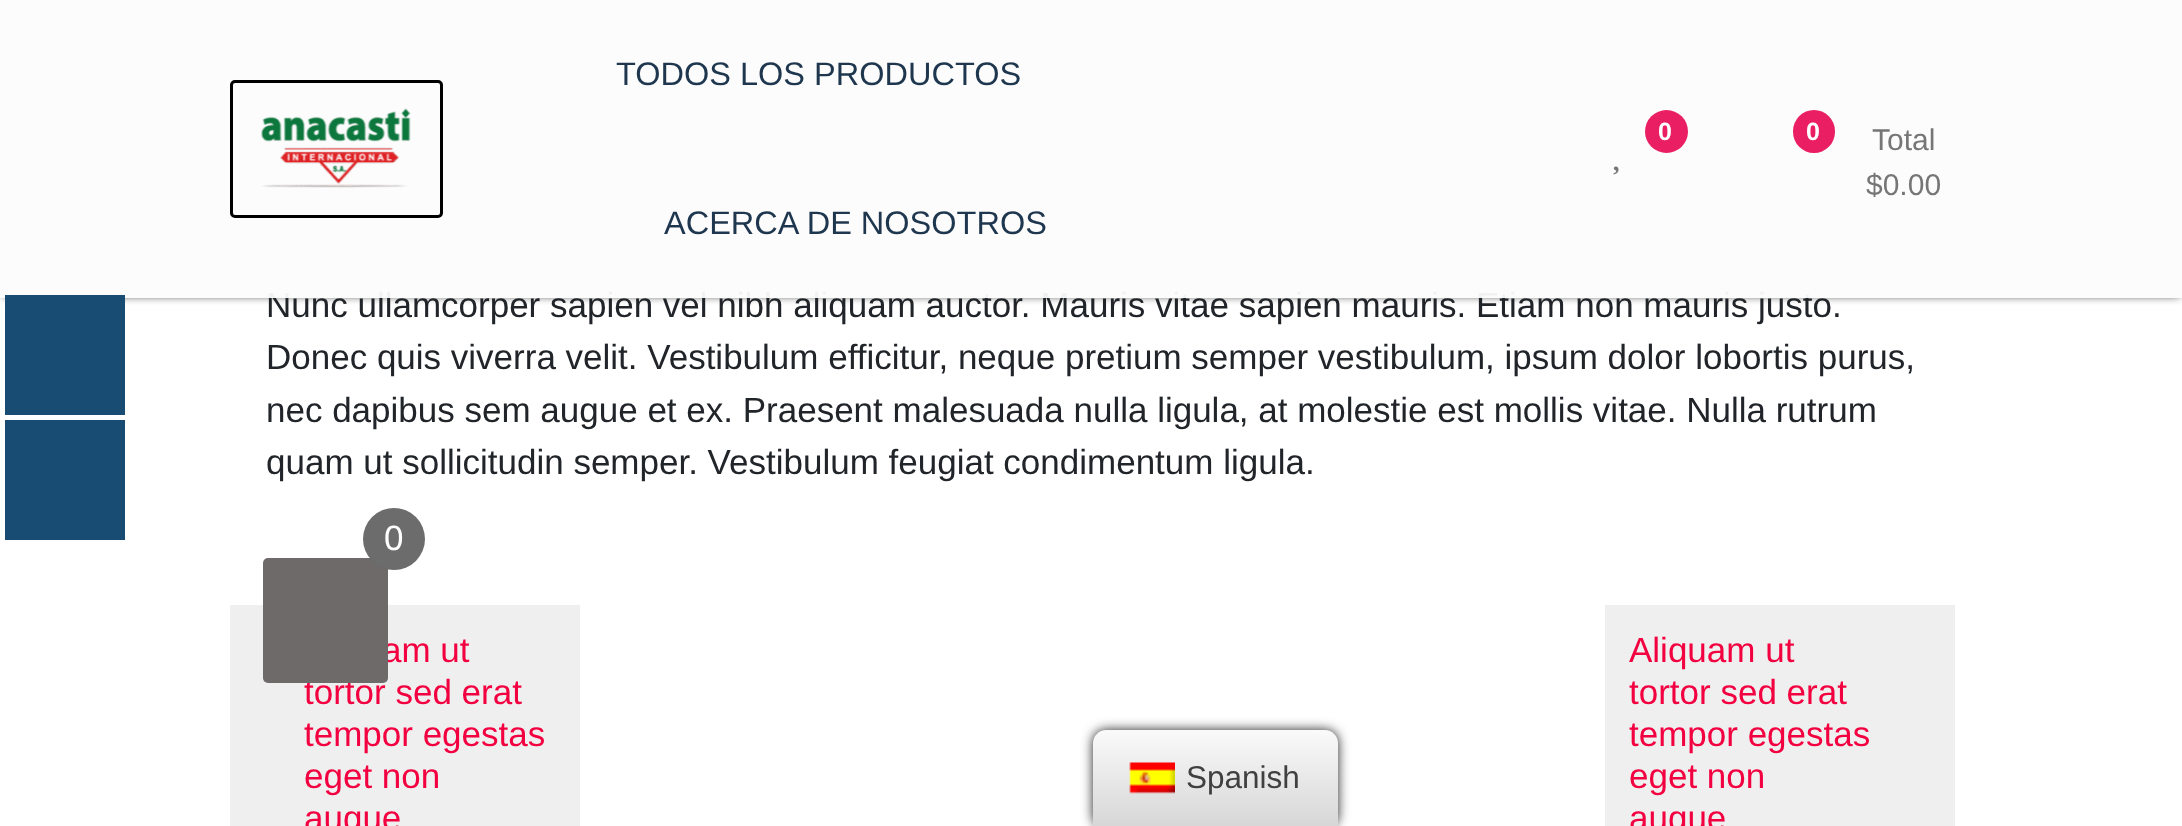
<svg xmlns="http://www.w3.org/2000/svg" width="2182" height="826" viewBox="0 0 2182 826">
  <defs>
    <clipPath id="clip1"><path d="M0 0H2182V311H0ZM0 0H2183V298H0Z" clip-rule="evenodd"/></clipPath>
    <linearGradient id="g1" gradientUnits="userSpaceOnUse" x1="1215" y1="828" x2="1215" y2="730"><stop offset="0" stop-color="rgb(214,214,214)"/><stop offset="1" stop-color="rgb(250,250,250)"/></linearGradient>
  </defs>
  <rect width="100%" height="100%" fill="rgb(255,255,255)"/>
  <g clip-path="url(#clip1)">
    <rect x="3" y="3" width="2177" height="292" fill="rgb(0,0,0)" filter="blur(5px)"/>
  </g>
  <text x="266" y="317" font-family="Liberation Sans" font-size="35" fill="rgb(33,37,41)">Nunc ullamcorper sapien vel nibh aliquam auctor. Mauris vitae sapien mauris. Etiam non mauris justo.</text>
  <rect x="0" y="0" width="2182" height="298" fill="rgba(252,252,252,0.95)"/>
  <rect x="5" y="295" width="120" height="120" fill="rgb(24,76,114)"/>
  <rect x="5" y="420" width="120" height="120" fill="rgb(24,76,114)"/>
  <rect x="231.5" y="81.5" width="210" height="135" rx="3.5" fill="none" stroke="rgb(0,0,0)" stroke-width="3"/>
  <image x="261" y="108" width="150" height="80" href="pic1.png"/>
  <g font-family="Liberation Sans" font-size="32.5" fill="rgb(30,54,78)">
    <text x="616" y="85">TODOS LOS PRODUCTOS</text>
    <text x="664" y="234">ACERCA DE NOSOTROS</text>
  </g>
  <circle cx="1666.5" cy="131.5" r="21.5" fill="rgb(233,30,99)"/>
  <text x="1658" y="140" font-family="Liberation Sans" font-size="25" font-weight="bold" fill="rgb(255,255,255)">0</text>
  <image x="1613" y="166" width="6" height="9" href="pic2.png"/>
  <rect x="1793" y="110" width="42" height="43" rx="21" fill="rgb(233,30,99)"/>
  <text x="1806" y="140" font-family="Liberation Sans" font-size="25" font-weight="bold" fill="rgb(255,255,255)">0</text>
  <g font-family="Liberation Sans" font-size="30" fill="rgb(118,118,118)">
    <text x="1872" y="150">Total</text>
    <text x="1866" y="195">$0.00</text>
  </g>
  <g font-family="Liberation Sans" font-size="35" fill="rgb(33,37,41)">
    <text>
      <tspan x="266" y="369">Donec quis viverra velit. Vestibulum efficitur, neque pretium semper vestibulum, ipsum dolor lobortis purus,</tspan>
      <tspan x="266" y="422">nec dapibus sem augue et ex. Praesent malesuada nulla ligula, at molestie est mollis vitae. Nulla rutrum</tspan>
      <tspan x="266" y="474">quam ut sollicitudin semper. Vestibulum feugiat condimentum ligula.</tspan>
    </text>
  </g>
  <rect x="230" y="605" width="350" height="221" fill="rgb(239,239,239)"/>
  <g font-family="Liberation Sans" font-size="35" fill="rgb(242,0,64)">
    <text x="382" y="662">am ut</text>
    <text>
      <tspan x="304" y="704">tortor sed erat</tspan>
      <tspan x="304" y="746">tempor egestas</tspan>
      <tspan x="304" y="788">eget non</tspan>
      <tspan x="304" y="830">augue</tspan>
    </text>
  </g>
  <rect x="1605" y="605" width="350" height="221" fill="rgb(239,239,239)"/>
  <g font-family="Liberation Sans" font-size="35" fill="rgb(242,0,64)">
    <text>
      <tspan x="1629" y="662">Aliquam ut</tspan>
      <tspan x="1629" y="704">tortor sed erat</tspan>
      <tspan x="1629" y="746">tempor egestas</tspan>
      <tspan x="1629" y="788">eget non</tspan>
      <tspan x="1629" y="830">augue</tspan>
    </text>
  </g>
  <rect x="263" y="558" width="125" height="125" rx="5" fill="rgb(110,106,106)"/>
  <circle cx="394" cy="539" r="31" fill="rgb(108,108,108)"/>
  <text x="384" y="550" font-family="Liberation Sans" font-size="35" fill="rgb(255,255,255)">0</text>
  <rect x="1093" y="730" width="245" height="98" rx="13" fill="rgb(33,33,33)" filter="blur(6px)"/>
  <path d="M1106 730H1325C1332 730 1338 736 1338 743V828H1093V743C1093 736 1099 730 1106 730Z" fill="url(#g1)"/>
  <image x="1129" y="762" width="46" height="32" href="pic3.png"/>
  <text x="1186" y="788" font-family="Liberation Sans" font-size="31.5" fill="rgb(64,64,64)">Spanish</text>
</svg>
